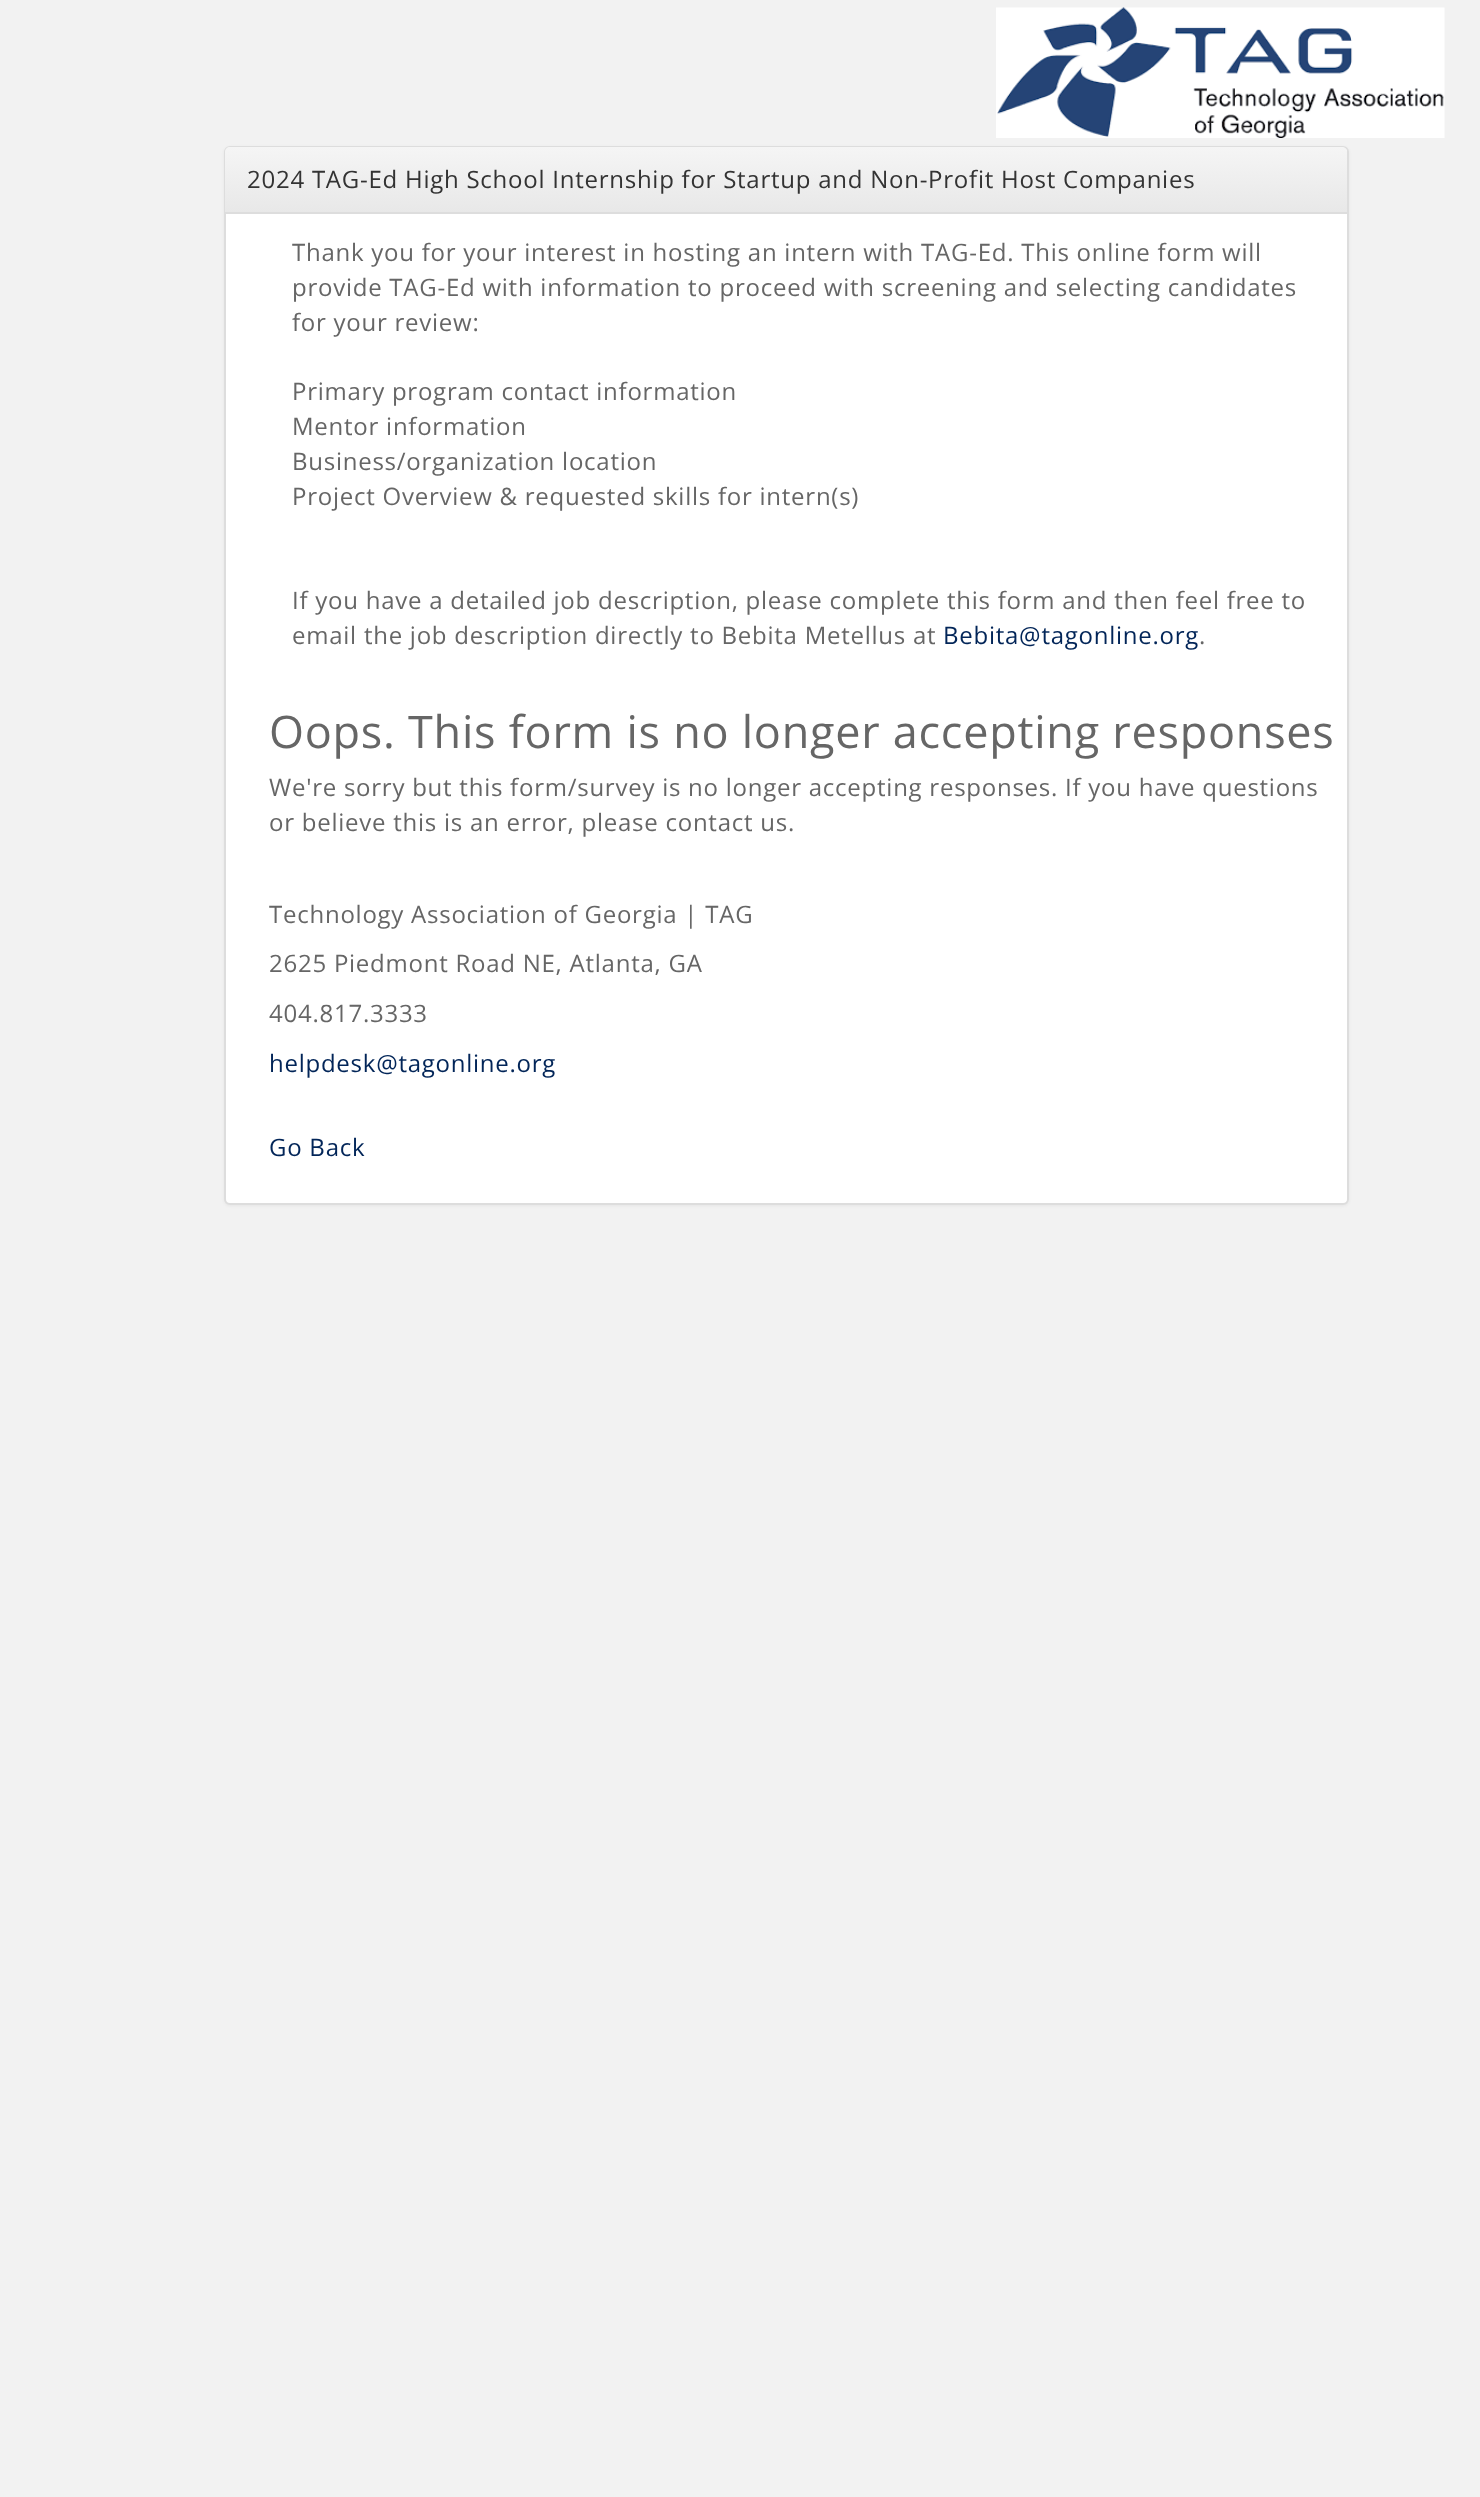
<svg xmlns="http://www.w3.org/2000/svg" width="1480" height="2497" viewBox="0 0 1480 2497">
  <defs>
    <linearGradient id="g1" gradientUnits="userSpaceOnUse" x1="786" y1="147" x2="786" y2="212"><stop offset="0" stop-color="rgb(245,245,245)"/><stop offset="1" stop-color="rgb(232,232,232)"/></linearGradient>
  </defs>
  <rect width="100%" height="100%" fill="rgb(242,242,242)"/>
  <image x="996" y="7" width="449" height="131" href="pic1.png"/>
  <rect x="224" y="147" width="1125" height="1059" rx="6" fill="rgba(0,0,0,0.05)" filter="blur(1.5px)"/>
  <rect x="225" y="147" width="1123" height="1057" rx="5" fill="rgb(255,255,255)" stroke="rgb(221,221,221)" stroke-width="2"/>
  <path d="M230 147H1342C1345 147 1347 149 1347 152V212H225V152C225 149 227 147 230 147Z" fill="url(#g1)"/>
  <rect x="225" y="212" width="1122" height="2" fill="rgb(221,221,221)"/>
  <text x="247" y="188" font-family="Open Sans" font-size="24" letter-spacing="0.75" fill="rgb(51,51,51)">2024 TAG-Ed High School Internship for Startup and Non-Profit Host Companies</text>
  <g font-family="Open Sans" font-size="24" letter-spacing="0.75" fill="rgb(102,102,102)">
    <text>
      <tspan x="292" y="261">Thank you for your interest in hosting an intern with TAG-Ed. This online form will</tspan>
      <tspan x="292" y="296">provide TAG-Ed with information to proceed with screening and selecting candidates</tspan>
      <tspan x="292" y="331">for your review:</tspan>
    </text>
    <text>
      <tspan x="292" y="400">Primary program contact information</tspan>
      <tspan x="292" y="435">Mentor information</tspan>
      <tspan x="292" y="470">Business/organization location</tspan>
      <tspan x="292" y="505">Project Overview &amp; requested skills for intern(s)</tspan>
    </text>
    <text>
      <tspan x="292" y="609">If you have a detailed job description, please complete this form and then feel free to</tspan>
      <tspan x="292" y="644">email the job description directly to Bebita Metellus at</tspan>
    </text>
  </g>
  <text x="943" y="644" font-family="Open Sans" font-size="24" letter-spacing="0.75" fill="rgb(2,37,88)">Bebita@tagonline.org</text>
  <text x="1199" y="644" font-family="Open Sans" font-size="24" letter-spacing="0.75" fill="rgb(102,102,102)">.</text>
  <text x="269" y="748" font-family="Open Sans" font-size="45" letter-spacing="0.75" fill="rgb(102,102,102)">Oops. This form is no longer accepting responses</text>
  <g font-family="Open Sans" font-size="24" letter-spacing="0.75" fill="rgb(102,102,102)">
    <text>
      <tspan x="269" y="796">We're sorry but this form/survey is no longer accepting responses. If you have questions</tspan>
      <tspan x="269" y="831">or believe this is an error, please contact us.</tspan>
    </text>
    <text x="269" y="923">Technology Association of Georgia | TAG</text>
    <text x="269" y="972">2625 Piedmont Road NE, Atlanta, GA</text>
    <text x="269" y="1022">404.817.3333</text>
  </g>
  <g font-family="Open Sans" font-size="24" letter-spacing="0.75" fill="rgb(2,37,88)">
    <text x="269" y="1072">helpdesk@tagonline.org</text>
    <text x="269" y="1156">Go Back</text>
  </g>
</svg>
